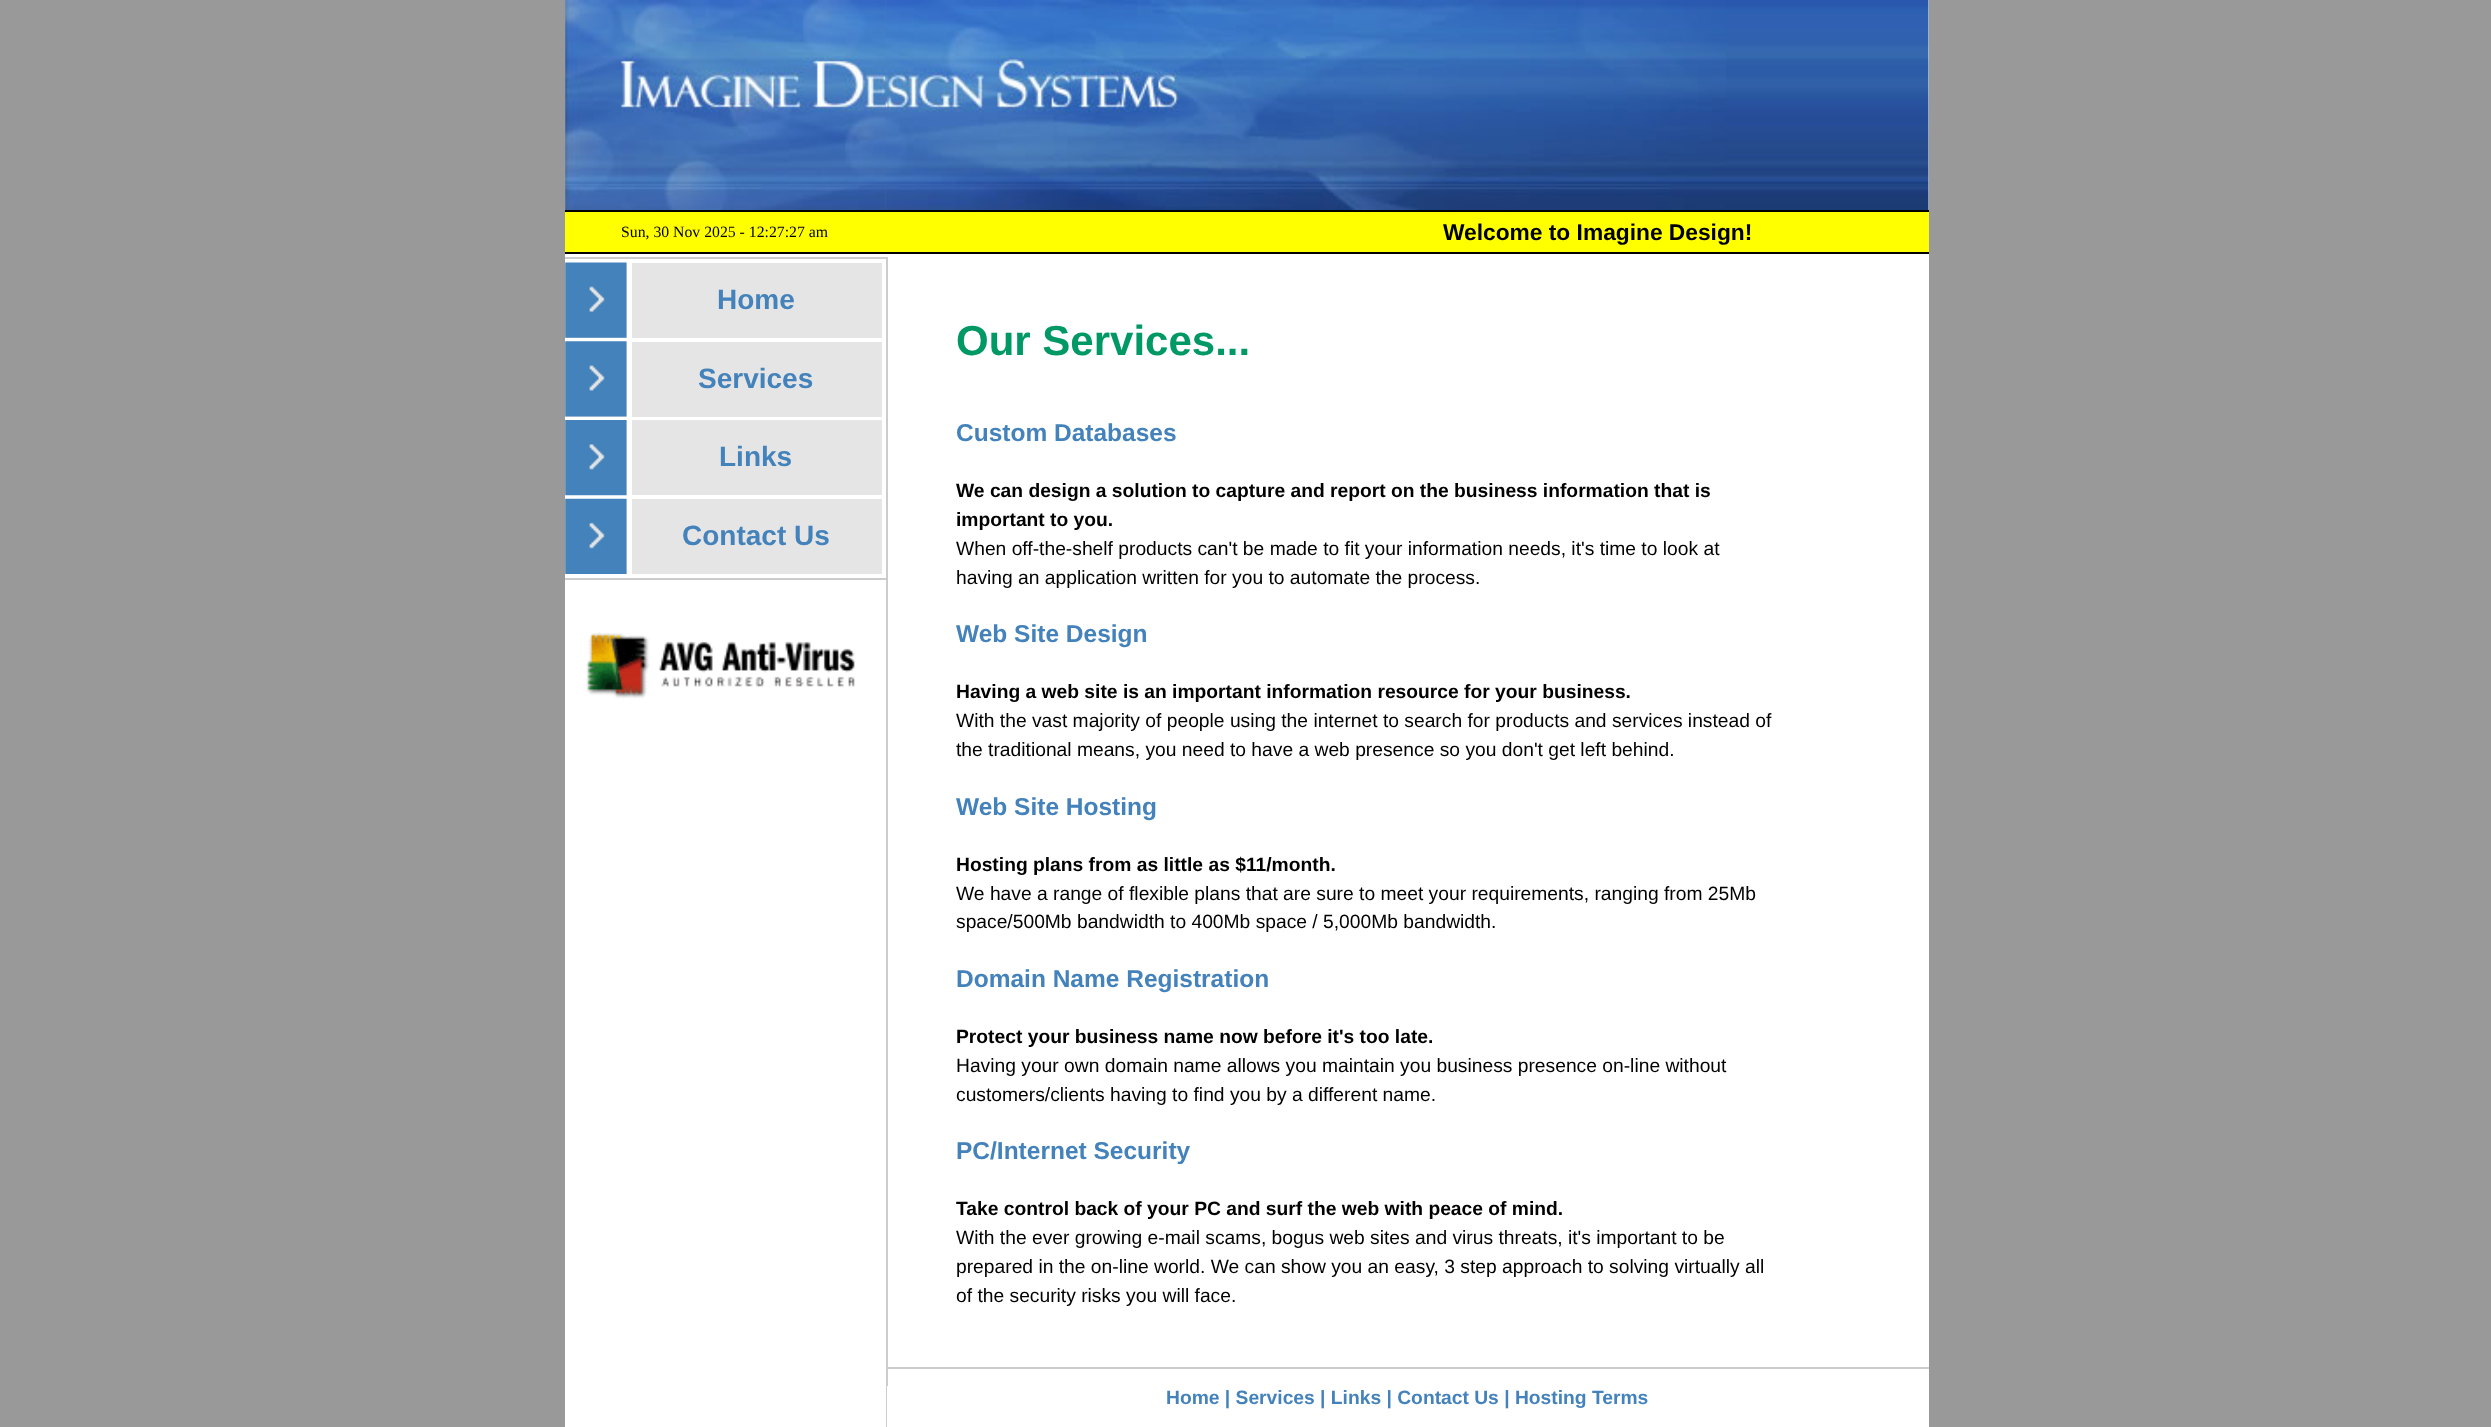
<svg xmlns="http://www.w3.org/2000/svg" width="2491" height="1427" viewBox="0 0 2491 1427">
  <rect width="100%" height="100%" fill="rgb(153,153,153)"/>
  <rect x="1928" y="0" width="1" height="210" fill="rgb(255,255,255)"/>
  <image x="885" y="0" width="1044" height="210" href="pic2.png"/>
  <image x="565" y="0" width="321" height="210" href="pic1.png"/>
  <image x="885" y="0" width="841" height="210" href="pic3.png"/>
  <rect x="565" y="212" width="1364" height="40" fill="rgb(255,255,0)"/>
  <rect x="565" y="210" width="1364" height="2" fill="rgb(0,0,0)"/>
  <rect x="565" y="252" width="1364" height="2" fill="rgb(0,0,0)"/>
  <text x="621" y="237" font-family="Liberation Serif" font-size="15.75" fill="rgb(0,0,0)">Sun, 30 Nov 2025 - 12:27:27 am</text>
  <text x="1443" y="240" font-family="Liberation Sans" font-size="22.75" font-weight="bold" fill="rgb(0,0,0)">Welcome to Imagine Design!</text>
  <rect x="565" y="254" width="1364" height="3" fill="rgb(255,255,255)"/>
  <rect x="565" y="259" width="321" height="1168" fill="rgb(255,255,255)"/>
  <rect x="565" y="257" width="321" height="2" fill="rgb(204,204,204)"/>
  <rect x="565" y="578" width="321" height="2" fill="rgb(204,204,204)"/>
  <rect x="565" y="263" width="62" height="75" fill="rgb(229,229,229)"/>
  <image x="565" y="262" width="62" height="76" href="pic4.png"/>
  <rect x="632" y="263" width="250" height="75" fill="rgb(229,229,229)"/>
  <text x="717" y="309" font-family="Liberation Sans" font-size="28" font-weight="bold" fill="rgb(68,130,187)">Home</text>
  <rect x="565" y="342" width="62" height="75" fill="rgb(229,229,229)"/>
  <image x="565" y="341" width="62" height="76" href="pic5.png"/>
  <rect x="632" y="342" width="250" height="75" fill="rgb(229,229,229)"/>
  <text x="698" y="388" font-family="Liberation Sans" font-size="28" font-weight="bold" fill="rgb(68,130,187)">Services</text>
  <rect x="565" y="420" width="62" height="75" fill="rgb(229,229,229)"/>
  <image x="565" y="420" width="62" height="76" href="pic6.png"/>
  <rect x="632" y="420" width="250" height="75" fill="rgb(229,229,229)"/>
  <text x="719" y="466" font-family="Liberation Sans" font-size="28" font-weight="bold" fill="rgb(68,130,187)">Links</text>
  <rect x="565" y="499" width="62" height="75" fill="rgb(229,229,229)"/>
  <image x="565" y="498" width="62" height="76" href="pic7.png"/>
  <rect x="632" y="499" width="250" height="75" fill="rgb(229,229,229)"/>
  <text x="682" y="545" font-family="Liberation Sans" font-size="28" font-weight="bold" fill="rgb(68,130,187)">Contact Us</text>
  <image x="586" y="632" width="269" height="67" href="pic8.png"/>
  <rect x="888" y="257" width="1041" height="1110" fill="rgb(255,255,255)"/>
  <rect x="886" y="257" width="2" height="1110" fill="rgb(204,204,204)"/>
  <text x="956" y="355" font-family="Liberation Sans" font-size="42" font-weight="bold" fill="rgb(0,153,102)">Our Services...</text>
  <text x="956" y="441" font-family="Liberation Sans" font-size="24.5" font-weight="bold" fill="rgb(68,130,187)">Custom Databases</text>
  <g font-family="Liberation Sans" font-size="19.25" font-weight="bold" fill="rgb(0,0,0)">
    <text>
      <tspan x="956" y="497">We can design a solution to capture and report on the business information that is</tspan>
      <tspan x="956" y="526">important to you.</tspan>
    </text>
  </g>
  <g font-family="Liberation Sans" font-size="19.25" fill="rgb(0,0,0)">
    <text>
      <tspan x="956" y="555">When off-the-shelf products can't be made to fit your information needs, it's time to look at</tspan>
      <tspan x="956" y="584">having an application written for you to automate the process.</tspan>
    </text>
  </g>
  <text x="956" y="642" font-family="Liberation Sans" font-size="24.5" font-weight="bold" fill="rgb(68,130,187)">Web Site Design</text>
  <text x="956" y="698" font-family="Liberation Sans" font-size="19.25" font-weight="bold" fill="rgb(0,0,0)">Having a web site is an important information resource for your business.</text>
  <g font-family="Liberation Sans" font-size="19.25" fill="rgb(0,0,0)">
    <text>
      <tspan x="956" y="727">With the vast majority of people using the internet to search for products and services instead of</tspan>
      <tspan x="956" y="756">the traditional means, you need to have a web presence so you don't get left behind.</tspan>
    </text>
  </g>
  <text x="956" y="815" font-family="Liberation Sans" font-size="24.5" font-weight="bold" fill="rgb(68,130,187)">Web Site Hosting</text>
  <text x="956" y="871" font-family="Liberation Sans" font-size="19.25" font-weight="bold" fill="rgb(0,0,0)">Hosting plans from as little as $11/month.</text>
  <g font-family="Liberation Sans" font-size="19.25" fill="rgb(0,0,0)">
    <text>
      <tspan x="956" y="900">We have a range of flexible plans that are sure to meet your requirements, ranging from 25Mb</tspan>
      <tspan x="956" y="928">space/500Mb bandwidth to 400Mb space / 5,000Mb bandwidth.</tspan>
    </text>
  </g>
  <text x="956" y="987" font-family="Liberation Sans" font-size="24.5" font-weight="bold" fill="rgb(68,130,187)">Domain Name Registration</text>
  <text x="956" y="1043" font-family="Liberation Sans" font-size="19.25" font-weight="bold" fill="rgb(0,0,0)">Protect your business name now before it's too late.</text>
  <g font-family="Liberation Sans" font-size="19.25" fill="rgb(0,0,0)">
    <text>
      <tspan x="956" y="1072">Having your own domain name allows you maintain you business presence on-line without</tspan>
      <tspan x="956" y="1101">customers/clients having to find you by a different name.</tspan>
    </text>
  </g>
  <text x="956" y="1159" font-family="Liberation Sans" font-size="24.5" font-weight="bold" fill="rgb(68,130,187)">PC/Internet Security</text>
  <text x="956" y="1215" font-family="Liberation Sans" font-size="19.25" font-weight="bold" fill="rgb(0,0,0)">Take control back of your PC and surf the web with peace of mind.</text>
  <g font-family="Liberation Sans" font-size="19.25" fill="rgb(0,0,0)">
    <text>
      <tspan x="956" y="1244">With the ever growing e-mail scams, bogus web sites and virus threats, it's important to be</tspan>
      <tspan x="956" y="1273">prepared in the on-line world. We can show you an easy, 3 step approach to solving virtually all</tspan>
      <tspan x="956" y="1302">of the security risks you will face.</tspan>
    </text>
  </g>
  <rect x="888" y="1369" width="1041" height="17" fill="rgb(255,255,255)"/>
  <rect x="886" y="1367" width="1043" height="2" fill="rgb(204,204,204)"/>
  <rect x="886" y="1367" width="2" height="60" fill="rgb(204,204,204)"/>
  <rect x="887" y="1386" width="1042" height="41" fill="rgb(255,255,255)"/>
  <text x="1166" y="1404" font-family="Liberation Sans" font-size="19.25" font-weight="bold" fill="rgb(68,130,187)">Home | Services | Links | Contact Us | Hosting Terms</text>
</svg>
